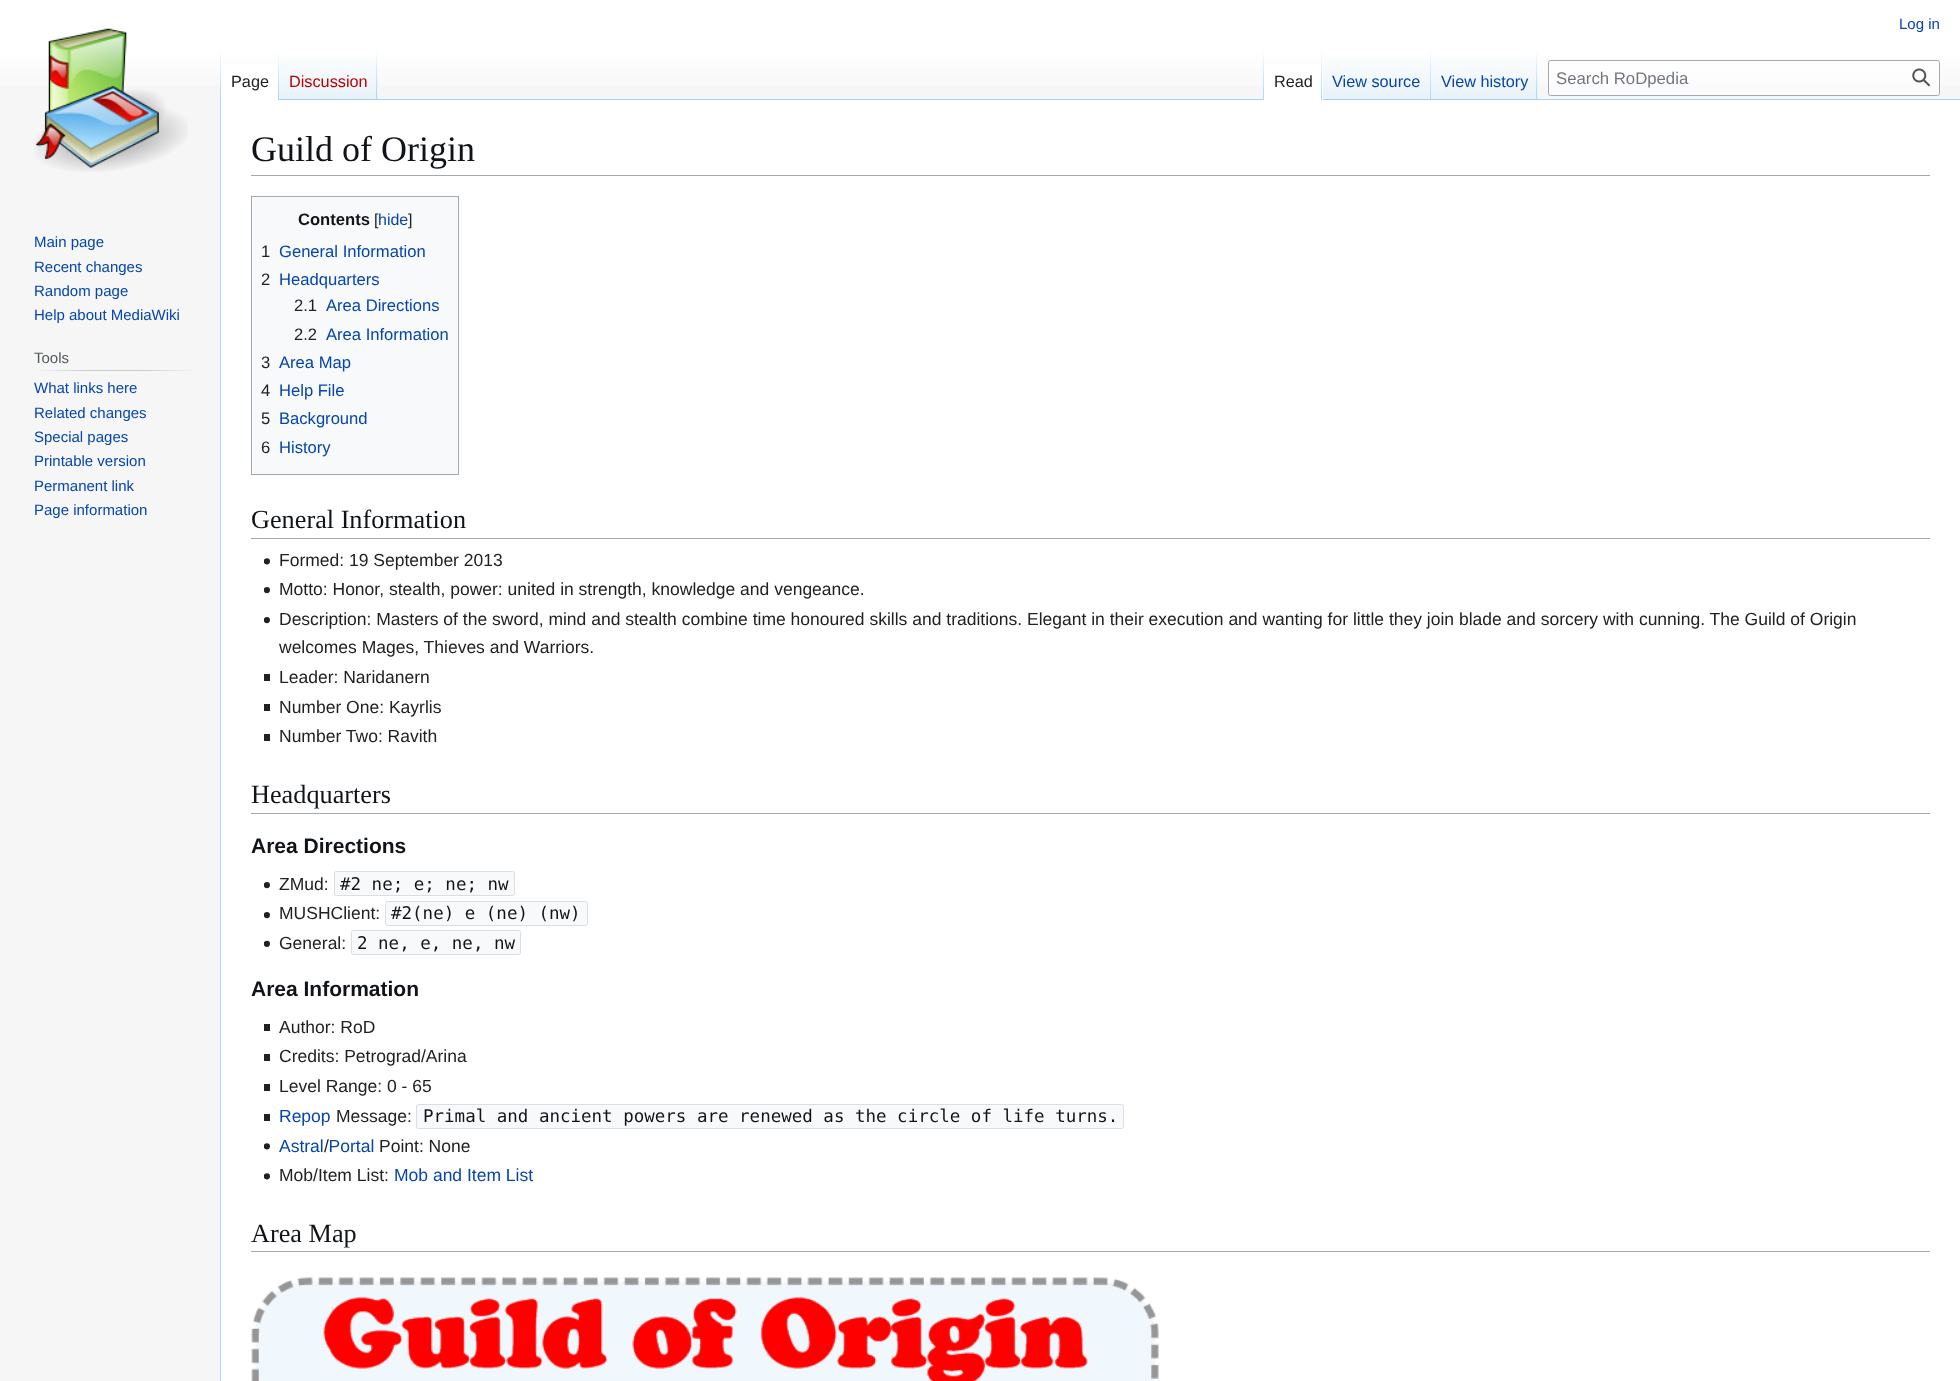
<svg xmlns="http://www.w3.org/2000/svg" width="1960" height="1381" viewBox="0 0 1960 1381">
  <defs>
    <linearGradient id="g1" gradientUnits="userSpaceOnUse" x1="980" y1="0" x2="980" y2="100"><stop offset="0.5" stop-color="rgb(255,255,255)"/><stop offset="1" stop-color="rgb(246,246,246)"/></linearGradient>
    <linearGradient id="g2" gradientUnits="userSpaceOnUse" x1="221" y1="50" x2="221" y2="100"><stop offset="0" stop-color="rgb(167,215,249)" stop-opacity="0"/><stop offset="1" stop-color="rgb(167,215,249)"/></linearGradient>
    <linearGradient id="g3" gradientUnits="userSpaceOnUse" x1="278" y1="50" x2="278" y2="100"><stop offset="0" stop-color="rgb(255,255,255)"/><stop offset="1" stop-color="rgb(167,215,249)"/></linearGradient>
    <linearGradient id="g4" gradientUnits="userSpaceOnUse" x1="328" y1="100" x2="328" y2="50"><stop offset="0" stop-color="rgb(119,193,246)"/><stop offset="0.03" stop-color="rgb(232,242,248)"/><stop offset="1" stop-color="rgb(255,255,255)"/></linearGradient>
    <linearGradient id="g5" gradientUnits="userSpaceOnUse" x1="377" y1="50" x2="377" y2="100"><stop offset="0" stop-color="rgb(167,215,249)" stop-opacity="0"/><stop offset="1" stop-color="rgb(167,215,249)"/></linearGradient>
    <linearGradient id="g6" gradientUnits="userSpaceOnUse" x1="1263" y1="50" x2="1263" y2="100"><stop offset="0" stop-color="rgb(167,215,249)" stop-opacity="0"/><stop offset="1" stop-color="rgb(167,215,249)"/></linearGradient>
    <linearGradient id="g7" gradientUnits="userSpaceOnUse" x1="1322" y1="50" x2="1322" y2="100"><stop offset="0" stop-color="rgb(255,255,255)"/><stop offset="1" stop-color="rgb(167,215,249)"/></linearGradient>
    <linearGradient id="g8" gradientUnits="userSpaceOnUse" x1="1377" y1="100" x2="1377" y2="50"><stop offset="0" stop-color="rgb(119,193,246)"/><stop offset="0.03" stop-color="rgb(232,242,248)"/><stop offset="1" stop-color="rgb(255,255,255)"/></linearGradient>
    <linearGradient id="g9" gradientUnits="userSpaceOnUse" x1="1431" y1="50" x2="1431" y2="100"><stop offset="0" stop-color="rgb(167,215,249)" stop-opacity="0"/><stop offset="1" stop-color="rgb(167,215,249)"/></linearGradient>
    <linearGradient id="g10" gradientUnits="userSpaceOnUse" x1="1484" y1="100" x2="1484" y2="50"><stop offset="0" stop-color="rgb(119,193,246)"/><stop offset="0.03" stop-color="rgb(232,242,248)"/><stop offset="1" stop-color="rgb(255,255,255)"/></linearGradient>
    <linearGradient id="g11" gradientUnits="userSpaceOnUse" x1="1537" y1="50" x2="1537" y2="100"><stop offset="0" stop-color="rgb(167,215,249)" stop-opacity="0"/><stop offset="1" stop-color="rgb(167,215,249)"/></linearGradient>
    <linearGradient id="g12" gradientUnits="userSpaceOnUse" x1="34" y1="371" x2="198" y2="371"><stop offset="0" stop-color="rgb(246,246,246)"/><stop offset="0.33" stop-color="rgb(200,204,209)"/><stop offset="0.66" stop-color="rgb(200,204,209)"/><stop offset="1" stop-color="rgb(246,246,246)"/></linearGradient>
  </defs>
  <rect width="100%" height="100%" fill="rgb(246,246,246)"/>
  <rect x="0" y="0" width="1960" height="86" fill="url(#g1)"/>
  <text x="1899" y="29" font-family="Liberation Sans" font-size="15" fill="rgb(6,69,173)">Log in</text>
  <rect x="220" y="99" width="1" height="1282" fill="rgb(167,215,249)"/>
  <rect x="220" y="50" width="1" height="50" fill="url(#g2)"/>
  <rect x="221" y="64" width="57" height="36" fill="rgb(255,255,255)"/>
  <rect x="278" y="50" width="1" height="50" fill="url(#g3)"/>
  <text x="231" y="87" font-family="Liberation Sans" font-size="16.25" fill="rgb(32,33,34)">Page</text>
  <rect x="279" y="57" width="99" height="43" fill="url(#g4)"/>
  <rect x="376" y="50" width="1" height="50" fill="url(#g5)"/>
  <text x="289" y="87" font-family="Liberation Sans" font-size="16.25" fill="rgb(186,0,0)">Discussion</text>
  <rect x="378" y="99" width="1582" height="1" fill="rgb(167,215,249)"/>
  <rect x="1263" y="50" width="1" height="50" fill="url(#g6)"/>
  <rect x="1264" y="64" width="59" height="36" fill="rgb(255,255,255)"/>
  <rect x="1321" y="50" width="1" height="50" fill="url(#g7)"/>
  <text x="1274" y="87" font-family="Liberation Sans" font-size="16.25" fill="rgb(32,33,34)">Read</text>
  <rect x="1323" y="57" width="108" height="43" fill="url(#g8)"/>
  <rect x="1430" y="50" width="1" height="50" fill="url(#g9)"/>
  <text x="1332" y="87" font-family="Liberation Sans" font-size="16.25" fill="rgb(6,69,173)">View source</text>
  <rect x="1431" y="57" width="107" height="43" fill="url(#g10)"/>
  <rect x="1536" y="50" width="1" height="50" fill="url(#g11)"/>
  <text x="1441" y="87" font-family="Liberation Sans" font-size="16.25" fill="rgb(6,69,173)">View history</text>
  <rect x="1548.5" y="60.5" width="391" height="35" rx="2" fill="rgba(255,255,255,0.5)" stroke="rgb(162,169,177)"/>
  <text x="1556" y="84" font-family="Liberation Sans" font-size="16.75" fill="rgb(114,119,125)">Search RoDpedia</text>
  <image x="1912" y="68" width="19" height="19" href="pic1.png"/>
  <image x="34" y="28" width="154" height="144" href="pic2.png"/>
  <g font-family="Liberation Sans" font-size="15" fill="rgb(6,69,173)">
    <text>
      <tspan x="34" y="247">Main page</tspan>
      <tspan x="34" y="272">Recent changes</tspan>
      <tspan x="34" y="296">Random page</tspan>
      <tspan x="34" y="320">Help about MediaWiki</tspan>
    </text>
  </g>
  <rect x="34" y="370" width="164" height="1" fill="url(#g12)"/>
  <text x="34" y="363" font-family="Liberation Sans" font-size="15" fill="rgb(84,89,93)">Tools</text>
  <g font-family="Liberation Sans" font-size="15" fill="rgb(6,69,173)">
    <text>
      <tspan x="34" y="393">What links here</tspan>
      <tspan x="34" y="418">Related changes</tspan>
      <tspan x="34" y="442">Special pages</tspan>
      <tspan x="34" y="466">Printable version</tspan>
      <tspan x="34" y="491">Permanent link</tspan>
      <tspan x="34" y="515">Page information</tspan>
    </text>
  </g>
  <rect x="221" y="100" width="1739" height="1281" fill="rgb(255,255,255)"/>
  <rect x="251" y="175" width="1679" height="1" fill="rgb(162,169,177)"/>
  <text x="251" y="161" font-family="Liberation Serif" font-size="36" fill="rgb(16,20,24)">Guild of Origin</text>
  <rect x="251.5" y="196.5" width="207" height="278" fill="rgb(248,249,250)" stroke="rgb(162,169,177)"/>
  <text x="298" y="225" font-family="Liberation Sans" font-size="16.6" font-weight="bold" fill="rgb(16,20,24)">Contents</text>
  <text x="374" y="225" font-family="Liberation Sans" font-size="16" fill="rgb(32,33,34)">[</text>
  <text x="378" y="225" font-family="Liberation Sans" font-size="16" fill="rgb(6,69,173)">hide</text>
  <text x="408" y="225" font-family="Liberation Sans" font-size="16" fill="rgb(32,33,34)">]</text>
  <text x="261" y="257" font-family="Liberation Sans" font-size="16.6" fill="rgb(32,33,34)">1</text>
  <text x="279" y="257" font-family="Liberation Sans" font-size="16.6" fill="rgb(6,69,173)">General Information</text>
  <text x="261" y="285" font-family="Liberation Sans" font-size="16.6" fill="rgb(32,33,34)">2</text>
  <text x="279" y="285" font-family="Liberation Sans" font-size="16.6" fill="rgb(6,69,173)">Headquarters</text>
  <text x="294" y="311" font-family="Liberation Sans" font-size="16.6" fill="rgb(32,33,34)">2.1</text>
  <text x="326" y="311" font-family="Liberation Sans" font-size="16.6" fill="rgb(6,69,173)">Area Directions</text>
  <text x="294" y="340" font-family="Liberation Sans" font-size="16.6" fill="rgb(32,33,34)">2.2</text>
  <text x="326" y="340" font-family="Liberation Sans" font-size="16.6" fill="rgb(6,69,173)">Area Information</text>
  <text x="261" y="368" font-family="Liberation Sans" font-size="16.6" fill="rgb(32,33,34)">3</text>
  <text x="279" y="368" font-family="Liberation Sans" font-size="16.6" fill="rgb(6,69,173)">Area Map</text>
  <text x="261" y="396" font-family="Liberation Sans" font-size="16.6" fill="rgb(32,33,34)">4</text>
  <text x="279" y="396" font-family="Liberation Sans" font-size="16.6" fill="rgb(6,69,173)">Help File</text>
  <text x="261" y="424" font-family="Liberation Sans" font-size="16.6" fill="rgb(32,33,34)">5</text>
  <text x="279" y="424" font-family="Liberation Sans" font-size="16.6" fill="rgb(6,69,173)">Background</text>
  <text x="261" y="453" font-family="Liberation Sans" font-size="16.6" fill="rgb(32,33,34)">6</text>
  <text x="279" y="453" font-family="Liberation Sans" font-size="16.6" fill="rgb(6,69,173)">History</text>
  <rect x="251" y="538" width="1679" height="1" fill="rgb(162,169,177)"/>
  <text x="251" y="528" font-family="Liberation Serif" font-size="26.25" fill="rgb(16,20,24)">General Information</text>
  <image x="264" y="558" width="6" height="7" href="pic3.png"/>
  <text x="279" y="566" font-family="Liberation Sans" font-size="17.5" fill="rgb(32,33,34)">Formed: 19 September 2013</text>
  <image x="264" y="587" width="6" height="7" href="pic4.png"/>
  <text x="279" y="595" font-family="Liberation Sans" font-size="17.5" fill="rgb(32,33,34)">Motto: Honor, stealth, power: united in strength, knowledge and vengeance.</text>
  <image x="264" y="617" width="6" height="7" href="pic4.png"/>
  <g font-family="Liberation Sans" font-size="17.5" fill="rgb(32,33,34)">
    <text>
      <tspan x="279" y="625">Description: Masters of the sword, mind and stealth combine time honoured skills and traditions. Elegant in their execution and wanting for little they join blade and sorcery with cunning. The Guild of Origin</tspan>
      <tspan x="279" y="653">welcomes Mages, Thieves and Warriors.</tspan>
    </text>
  </g>
  <rect x="264" y="674" width="6" height="7" fill="rgb(32,33,34)"/>
  <text x="279" y="683" font-family="Liberation Sans" font-size="17.5" fill="rgb(32,33,34)">Leader: Naridanern</text>
  <rect x="264" y="704" width="6" height="7" fill="rgb(32,33,34)"/>
  <text x="279" y="713" font-family="Liberation Sans" font-size="17.5" fill="rgb(32,33,34)">Number One: Kayrlis</text>
  <rect x="264" y="734" width="6" height="7" fill="rgb(32,33,34)"/>
  <text x="279" y="742" font-family="Liberation Sans" font-size="17.5" fill="rgb(32,33,34)">Number Two: Ravith</text>
  <rect x="251" y="813" width="1679" height="1" fill="rgb(162,169,177)"/>
  <text x="251" y="803" font-family="Liberation Serif" font-size="26.25" fill="rgb(16,20,24)">Headquarters</text>
  <text x="251" y="853" font-family="Liberation Sans" font-size="21" font-weight="bold" fill="rgb(16,20,24)">Area Directions</text>
  <image x="264" y="882" width="6" height="7" href="pic4.png"/>
  <text x="279" y="890" font-family="Liberation Sans" font-size="17.5" fill="rgb(32,33,34)">ZMud:</text>
  <rect x="334.5" y="871.5" width="180" height="24" rx="2" fill="rgb(248,249,250)" stroke="rgb(218,221,227)"/>
  <text x="340" y="890" font-family="DejaVu Sans Mono" font-size="17.5" fill="rgb(16,20,24)">#2 ne; e; ne; nw</text>
  <image x="264" y="912" width="6" height="7" href="pic4.png"/>
  <text x="279" y="919" font-family="Liberation Sans" font-size="17.5" fill="rgb(32,33,34)">MUSHClient:</text>
  <rect x="385.5" y="901.5" width="202" height="24" rx="2" fill="rgb(248,249,250)" stroke="rgb(218,221,227)"/>
  <text x="391" y="919" font-family="DejaVu Sans Mono" font-size="17.5" fill="rgb(16,20,24)">#2(ne) e (ne) (nw)</text>
  <image x="264" y="940" width="6" height="7" href="pic5.png"/>
  <text x="279" y="949" font-family="Liberation Sans" font-size="17.5" fill="rgb(32,33,34)">General:</text>
  <rect x="351.5" y="930.5" width="169" height="24" rx="2" fill="rgb(248,249,250)" stroke="rgb(218,221,227)"/>
  <text x="357" y="949" font-family="DejaVu Sans Mono" font-size="17.5" fill="rgb(16,20,24)">2 ne, e, ne, nw</text>
  <text x="251" y="996" font-family="Liberation Sans" font-size="21" font-weight="bold" fill="rgb(16,20,24)">Area Information</text>
  <rect x="264" y="1024" width="6" height="7" fill="rgb(32,33,34)"/>
  <text x="279" y="1033" font-family="Liberation Sans" font-size="17.5" fill="rgb(32,33,34)">Author: RoD</text>
  <rect x="264" y="1054" width="6" height="7" fill="rgb(32,33,34)"/>
  <text x="279" y="1062" font-family="Liberation Sans" font-size="17.5" fill="rgb(32,33,34)">Credits: Petrograd/Arina</text>
  <rect x="264" y="1084" width="6" height="7" fill="rgb(32,33,34)"/>
  <text x="279" y="1092" font-family="Liberation Sans" font-size="17.5" fill="rgb(32,33,34)">Level Range: 0 - 65</text>
  <rect x="264" y="1114" width="6" height="7" fill="rgb(32,33,34)"/>
  <text x="279" y="1122" font-family="Liberation Sans" font-size="17.5" fill="rgb(6,69,173)">Repop</text>
  <text x="336" y="1122" font-family="Liberation Sans" font-size="17.5" fill="rgb(32,33,34)">Message:</text>
  <rect x="416.5" y="1104.5" width="707" height="24" rx="2" fill="rgb(248,249,250)" stroke="rgb(218,221,227)"/>
  <text x="423" y="1122" font-family="DejaVu Sans Mono" font-size="17.5" fill="rgb(16,20,24)">Primal and ancient powers are renewed as the circle of life turns.</text>
  <image x="264" y="1143" width="6" height="7" href="pic3.png"/>
  <text x="279" y="1152" font-family="Liberation Sans" font-size="17.5" fill="rgb(6,69,173)">Astral Portal</text>
  <g font-family="Liberation Sans" font-size="17.5" fill="rgb(32,33,34)">
    <text x="324" y="1152">/</text>
    <text x="379" y="1152">Point: None</text>
  </g>
  <image x="264" y="1173" width="6" height="7" href="pic3.png"/>
  <text x="279" y="1181" font-family="Liberation Sans" font-size="17.5" fill="rgb(32,33,34)">Mob/Item List:</text>
  <text x="394" y="1181" font-family="Liberation Sans" font-size="17.5" fill="rgb(6,69,173)">Mob and Item List</text>
  <rect x="251" y="1251" width="1679" height="1" fill="rgb(162,169,177)"/>
  <text x="251" y="1242" font-family="Liberation Serif" font-size="26.25" fill="rgb(16,20,24)">Area Map</text>
  <image x="251" y="1277" width="908" height="104" href="pic6.png"/>
</svg>
